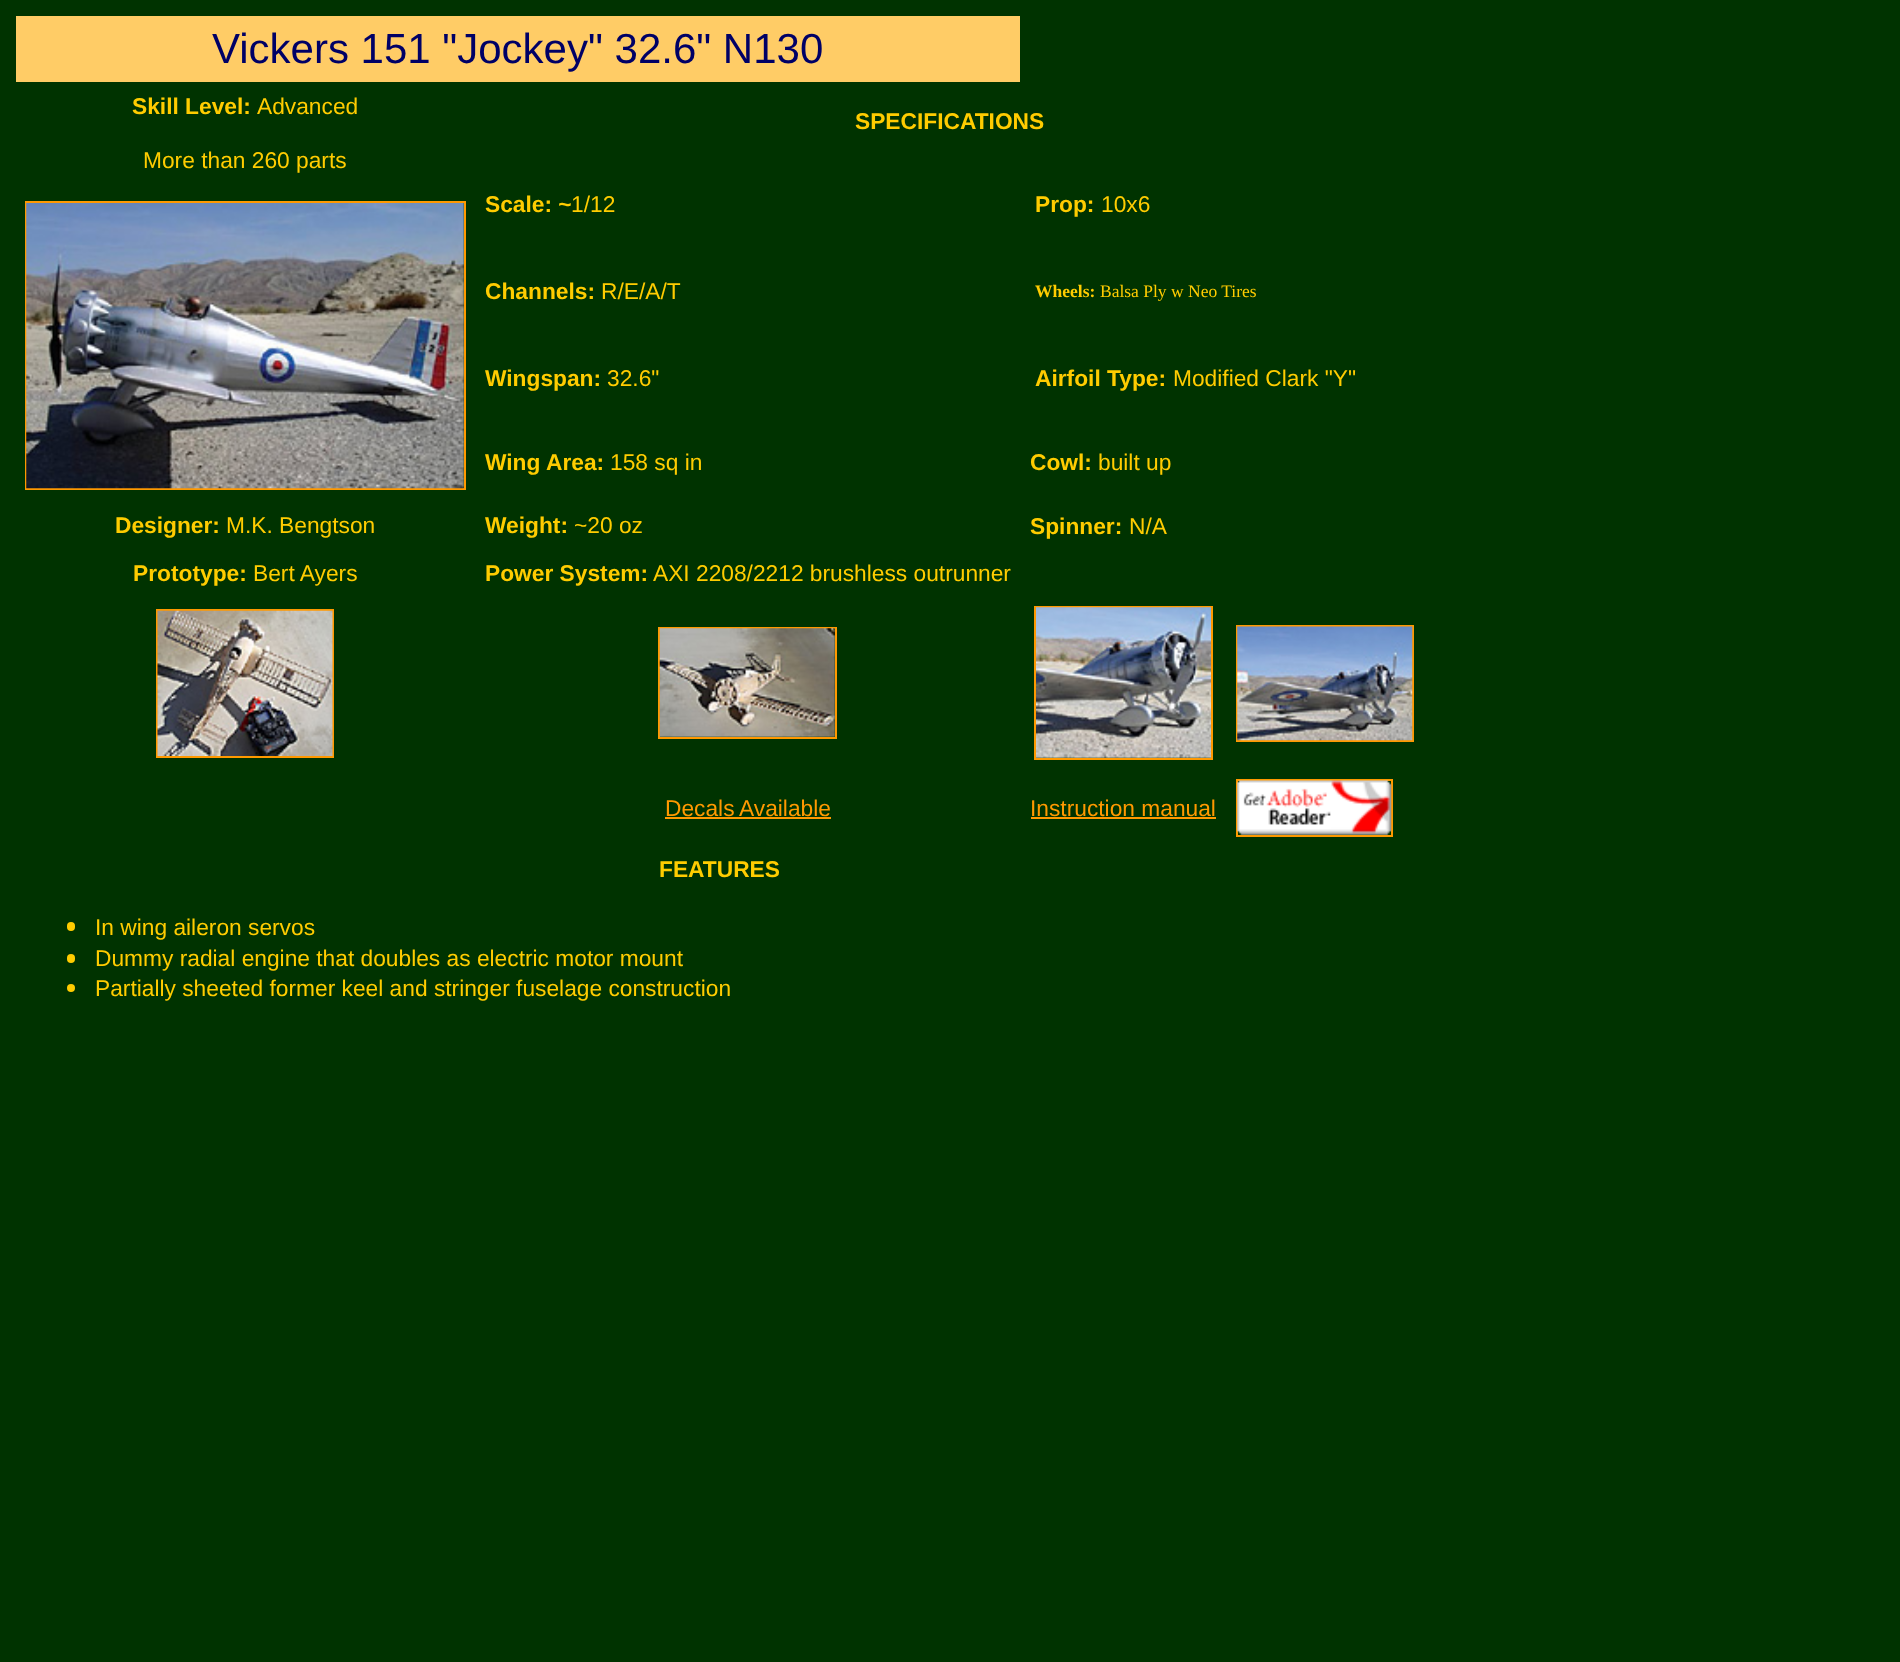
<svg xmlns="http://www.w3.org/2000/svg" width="1900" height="1662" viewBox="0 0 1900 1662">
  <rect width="100%" height="100%" fill="rgb(0,51,0)"/>
  <rect x="16" y="16" width="1004" height="66" fill="rgb(255,204,102)"/>
  <text x="212" y="63" font-family="Liberation Sans" font-size="42" fill="rgb(0,0,102)">Vickers 151 "Jockey" 32.6" N130</text>
  <text x="132" y="114" font-family="Liberation Sans" font-size="22.75" font-weight="bold" fill="rgb(255,204,0)">Skill Level:</text>
  <g font-family="Liberation Sans" font-size="22.75" fill="rgb(255,204,0)">
    <text x="257" y="114">Advanced</text>
    <text x="143" y="168">More than 260 parts</text>
  </g>
  <rect x="26" y="202" width="439" height="287" fill="none" stroke="rgb(255,153,0)" stroke-width="2"/>
  <image x="26" y="203" width="438" height="286" href="pic1.png"/>
  <g font-family="Liberation Sans" font-size="22.75" font-weight="bold" fill="rgb(255,204,0)">
    <text x="855" y="129">SPECIFICATIONS</text>
    <text x="485" y="212">Scale: ~</text>
  </g>
  <text x="571" y="212" font-family="Liberation Sans" font-size="22.75" fill="rgb(255,204,0)">1/12</text>
  <text x="1035" y="212" font-family="Liberation Sans" font-size="22.75" font-weight="bold" fill="rgb(255,204,0)">Prop:</text>
  <text x="1101" y="212" font-family="Liberation Sans" font-size="22.75" fill="rgb(255,204,0)">10x6</text>
  <text x="485" y="299" font-family="Liberation Sans" font-size="22.75" font-weight="bold" fill="rgb(255,204,0)">Channels:</text>
  <text x="601" y="299" font-family="Liberation Sans" font-size="22.75" fill="rgb(255,204,0)">R/E/A/T</text>
  <text x="1035" y="297" font-family="Liberation Serif" font-size="17.5" font-weight="bold" fill="rgb(255,204,0)">Wheels:</text>
  <text x="1100" y="297" font-family="Liberation Serif" font-size="17.5" fill="rgb(255,204,0)">Balsa Ply w Neo Tires</text>
  <text x="485" y="386" font-family="Liberation Sans" font-size="22.75" font-weight="bold" fill="rgb(255,204,0)">Wingspan:</text>
  <text x="607" y="386" font-family="Liberation Sans" font-size="22.75" fill="rgb(255,204,0)">32.6"</text>
  <text x="1035" y="386" font-family="Liberation Sans" font-size="22.75" font-weight="bold" fill="rgb(255,204,0)">Airfoil Type:</text>
  <text x="1173" y="386" font-family="Liberation Sans" font-size="22.75" fill="rgb(255,204,0)">Modified Clark "Y"</text>
  <g font-family="Liberation Sans" font-size="22.75" font-weight="bold" fill="rgb(255,204,0)">
    <text x="485" y="470">Wing</text>
    <text x="546" y="470">Area:</text>
  </g>
  <text x="610" y="470" font-family="Liberation Sans" font-size="22.75" fill="rgb(255,204,0)">158 sq in</text>
  <text x="1030" y="470" font-family="Liberation Sans" font-size="22.75" font-weight="bold" fill="rgb(255,204,0)">Cowl:</text>
  <text x="1098" y="470" font-family="Liberation Sans" font-size="22.75" fill="rgb(255,204,0)">built up</text>
  <text x="115" y="533" font-family="Liberation Sans" font-size="22.75" font-weight="bold" fill="rgb(255,204,0)">Designer:</text>
  <text x="226" y="533" font-family="Liberation Sans" font-size="22.75" fill="rgb(255,204,0)">M.K. Bengtson</text>
  <text x="485" y="533" font-family="Liberation Sans" font-size="22.75" font-weight="bold" fill="rgb(255,204,0)">Weight:</text>
  <text x="574" y="533" font-family="Liberation Sans" font-size="22.75" fill="rgb(255,204,0)">~20 oz</text>
  <text x="1030" y="534" font-family="Liberation Sans" font-size="22.75" font-weight="bold" fill="rgb(255,204,0)">Spinner:</text>
  <text x="1129" y="534" font-family="Liberation Sans" font-size="22.75" fill="rgb(255,204,0)">N/A</text>
  <text x="133" y="581" font-family="Liberation Sans" font-size="22.75" font-weight="bold" fill="rgb(255,204,0)">Prototype:</text>
  <text x="253" y="581" font-family="Liberation Sans" font-size="22.75" fill="rgb(255,204,0)">Bert Ayers</text>
  <text x="485" y="581" font-family="Liberation Sans" font-size="22.75" font-weight="bold" fill="rgb(255,204,0)">Power System:</text>
  <text x="653" y="581" font-family="Liberation Sans" font-size="22.75" fill="rgb(255,204,0)">AXI 2208/2212 brushless outrunner</text>
  <rect x="157" y="610" width="176" height="147" fill="none" stroke="rgb(255,153,0)" stroke-width="2"/>
  <image x="157" y="610" width="176" height="146" href="pic2.png"/>
  <rect x="659" y="628" width="177" height="110" fill="none" stroke="rgb(255,153,0)" stroke-width="2"/>
  <image x="659" y="628" width="176" height="109" href="pic3.png"/>
  <rect x="1035" y="607" width="177" height="152" fill="none" stroke="rgb(255,153,0)" stroke-width="2"/>
  <image x="1036" y="607" width="175" height="151" href="pic4.png"/>
  <rect x="1237" y="626" width="176" height="115" fill="none" stroke="rgb(255,153,0)" stroke-width="2"/>
  <image x="1237" y="626" width="176" height="115" href="pic5.png"/>
  <text x="665" y="816" font-family="Liberation Sans" font-size="22.75" fill="rgb(255,153,0)">Decals</text>
  <rect x="665" y="817" width="166" height="2" fill="rgb(255,153,0)"/>
  <g font-family="Liberation Sans" font-size="22.75" fill="rgb(255,153,0)">
    <text x="739" y="816">Available</text>
    <text x="1030" y="816">Instruction manual</text>
  </g>
  <rect x="1031" y="817" width="185" height="2" fill="rgb(255,153,0)"/>
  <rect x="1237" y="780" width="155" height="56" fill="none" stroke="rgb(255,153,0)" stroke-width="2"/>
  <image x="1237" y="780" width="155" height="55" href="pic6.png"/>
  <text x="659" y="877" font-family="Liberation Sans" font-size="22.75" font-weight="bold" fill="rgb(255,204,0)">FEATURES</text>
  <rect x="67" y="922" width="8" height="9" rx="4" fill="rgb(255,204,0)"/>
  <text x="95" y="935" font-family="Liberation Sans" font-size="22.75" fill="rgb(255,204,0)">In wing aileron servos</text>
  <rect x="67" y="954" width="8" height="9" rx="4" fill="rgb(255,204,0)"/>
  <text x="95" y="966" font-family="Liberation Sans" font-size="22.75" fill="rgb(255,204,0)">Dummy radial engine that doubles as electric motor mount</text>
  <circle cx="71" cy="988" r="4" fill="rgb(255,204,0)"/>
  <text x="95" y="996" font-family="Liberation Sans" font-size="22.75" fill="rgb(255,204,0)">Partially sheeted former keel and stringer fuselage construction</text>
</svg>
